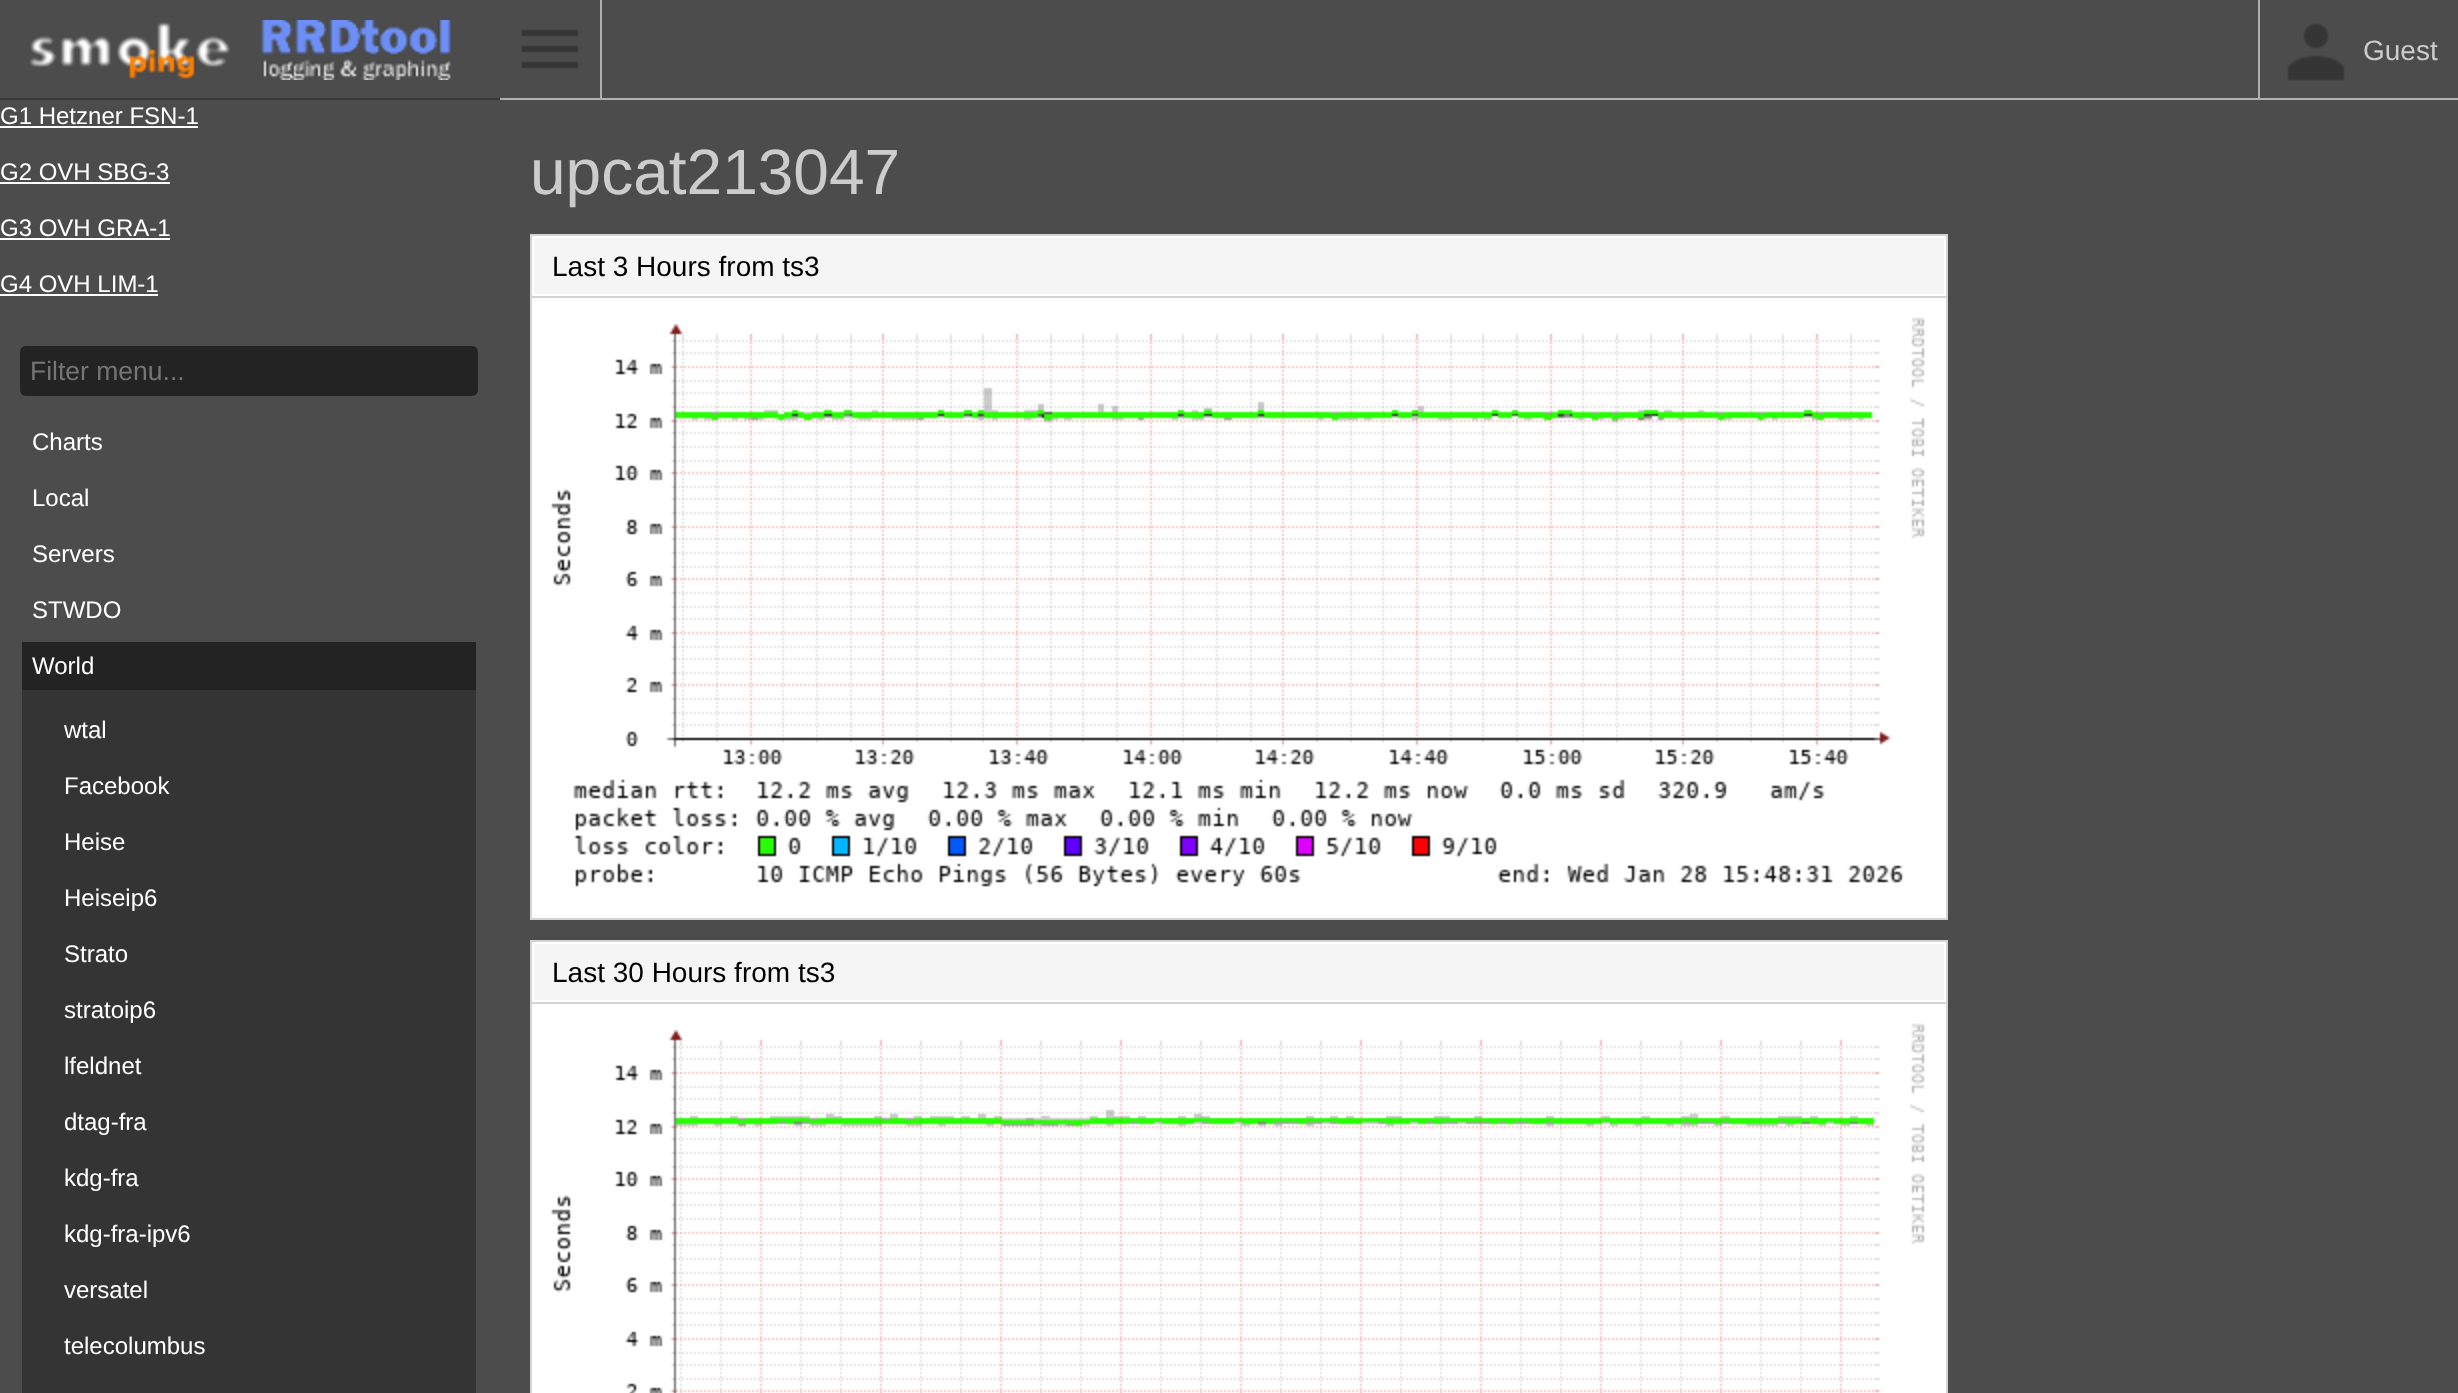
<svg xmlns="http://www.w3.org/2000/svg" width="2458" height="1393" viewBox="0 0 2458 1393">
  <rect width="100%" height="100%" fill="rgb(76,76,76)"/>
  <rect x="500" y="98" width="1958" height="2" fill="rgb(175,175,175)"/>
  <rect x="600" y="0" width="2" height="100" fill="rgb(175,175,175)"/>
  <image x="521" y="29" width="58" height="40" href="pic1.png"/>
  <rect x="2258" y="0" width="2" height="100" fill="rgb(175,175,175)"/>
  <image x="2287" y="23" width="58" height="58" href="pic2.png"/>
  <text x="2363" y="60" font-family="Liberation Sans" font-size="28" fill="rgb(204,204,204)">Guest</text>
  <rect x="0" y="98" width="500" height="2" fill="rgb(55,55,55)"/>
  <image x="30" y="22" width="200" height="57" href="pic3.png"/>
  <image x="261" y="20" width="190" height="60" href="pic4.png"/>
  <text x="0" y="124" font-family="Liberation Sans" font-size="24" fill="rgb(255,255,255)">G1 Hetzner FSN-1</text>
  <rect x="0" y="126" width="198" height="2" fill="rgb(255,255,255)"/>
  <text x="0" y="180" font-family="Liberation Sans" font-size="24" fill="rgb(255,255,255)">G2 OVH SBG-3</text>
  <rect x="0" y="182" width="170" height="2" fill="rgb(255,255,255)"/>
  <text x="0" y="236" font-family="Liberation Sans" font-size="24" fill="rgb(255,255,255)">G3 OVH GRA-1</text>
  <rect x="0" y="238" width="170" height="2" fill="rgb(255,255,255)"/>
  <text x="0" y="292" font-family="Liberation Sans" font-size="24" fill="rgb(255,255,255)">G4 OVH LIM-1</text>
  <rect x="0" y="294" width="158" height="2" fill="rgb(255,255,255)"/>
  <rect x="20" y="346" width="458" height="50" rx="6" fill="rgb(35,35,35)"/>
  <text x="30" y="380" font-family="Liberation Sans" font-size="26.5" fill="rgb(117,117,117)">Filter menu...</text>
  <g font-family="Liberation Sans" font-size="24" fill="rgb(255,255,255)">
    <text x="32" y="450">Charts</text>
    <text x="32" y="506">Local</text>
    <text x="32" y="562">Servers</text>
    <text x="32" y="618">STWDO</text>
  </g>
  <rect x="22" y="642" width="454" height="48" fill="rgb(35,35,35)"/>
  <text x="32" y="674" font-family="Liberation Sans" font-size="24" fill="rgb(255,255,255)">World</text>
  <rect x="22" y="690" width="454" height="703" fill="rgb(52,52,52)"/>
  <g font-family="Liberation Sans" font-size="24" fill="rgb(255,255,255)">
    <text x="64" y="738">wtal</text>
    <text x="64" y="794">Facebook</text>
    <text x="64" y="850">Heise</text>
    <text x="64" y="906">Heiseip6</text>
    <text x="64" y="962">Strato</text>
    <text x="64" y="1018">stratoip6</text>
    <text x="64" y="1074">lfeldnet</text>
    <text x="64" y="1130">dtag-fra</text>
    <text x="64" y="1186">kdg-fra</text>
    <text x="64" y="1242">kdg-fra-ipv6</text>
    <text x="64" y="1298">versatel</text>
    <text x="64" y="1354">telecolumbus</text>
  </g>
  <text x="530" y="194" font-family="Liberation Sans" font-size="64" fill="rgb(204,204,204)">upcat213047</text>
  <rect x="532" y="298" width="1414" height="620" fill="rgb(255,255,255)"/>
  <rect x="531" y="235" width="1416" height="684" fill="none" stroke="rgb(212,212,212)" stroke-width="2"/>
  <rect x="533" y="237" width="1412" height="58" fill="rgb(245,245,245)" stroke="rgb(255,255,255)" stroke-width="2"/>
  <rect x="532" y="296" width="1414" height="2" fill="rgb(212,212,212)"/>
  <text x="552" y="276" font-family="Liberation Sans" font-size="28" fill="rgb(0,0,0)">Last 3 Hours from ts3</text>
  <image x="551" y="317" width="1374" height="570" href="pic5.png"/>
  <rect x="532" y="1004" width="1414" height="389" fill="rgb(255,255,255)"/>
  <rect x="531" y="941" width="1416" height="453" fill="none" stroke="rgb(212,212,212)" stroke-width="2"/>
  <rect x="533" y="943" width="1412" height="58" fill="rgb(245,245,245)" stroke="rgb(255,255,255)" stroke-width="2"/>
  <rect x="532" y="1002" width="1414" height="2" fill="rgb(212,212,212)"/>
  <text x="552" y="982" font-family="Liberation Sans" font-size="28" fill="rgb(0,0,0)">Last 30 Hours from ts3</text>
  <image x="551" y="1023" width="1374" height="370" href="pic6.png"/>
</svg>
